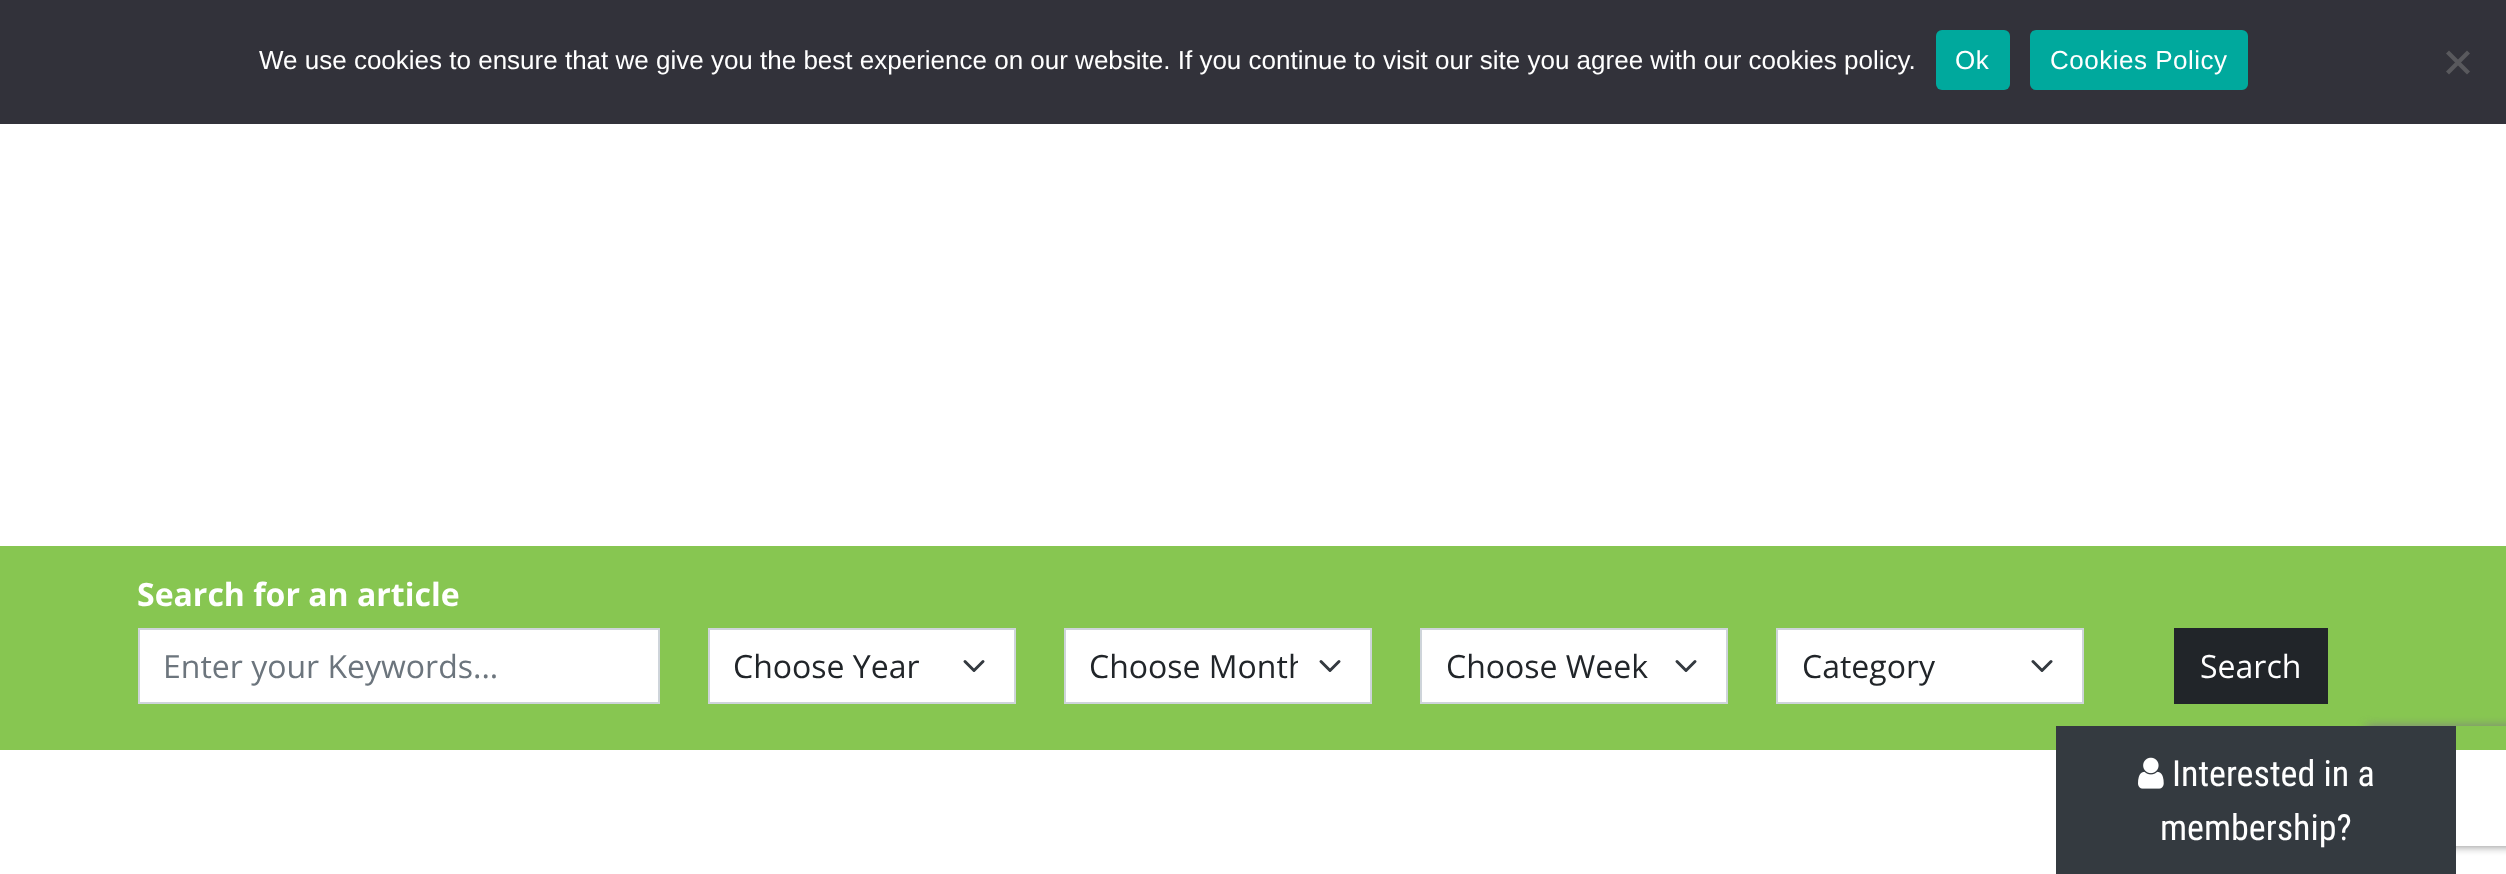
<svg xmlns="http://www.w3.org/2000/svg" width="2506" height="874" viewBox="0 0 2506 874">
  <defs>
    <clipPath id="clip1"><rect x="1090" y="642" width="208" height="48"/></clipPath>
    <clipPath id="clip2"><path d="M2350 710H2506V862H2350ZM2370 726H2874C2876 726 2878 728 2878 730V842C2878 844 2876 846 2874 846H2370C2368 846 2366 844 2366 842V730C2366 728 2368 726 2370 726Z" clip-rule="evenodd"/></clipPath>
  </defs>
  <rect width="100%" height="100%" fill="rgb(255,255,255)"/>
  <rect x="0" y="0" width="2506" height="124" fill="rgb(50,50,58)"/>
  <text x="259" y="69" font-family="Liberation Sans" font-size="26" fill="rgb(255,255,255)">We use cookies to ensure that we give you the best experience on our website. If you continue to visit our site you agree with our cookies policy.</text>
  <rect x="1936" y="30" width="74" height="60" rx="6" fill="rgb(0,169,157)"/>
  <text x="1955" y="69" font-family="Liberation Sans" font-size="26" letter-spacing="0.5" fill="rgb(255,255,255)">Ok</text>
  <rect x="2030" y="30" width="218" height="60" rx="6" fill="rgb(0,169,157)"/>
  <text x="2050" y="69" font-family="Liberation Sans" font-size="26" letter-spacing="0.5" fill="rgb(255,255,255)">Cookies Policy</text>
  <path d="M2467 50.5L2470 53.5L2449 74.5L2446 71.5Z" fill="rgb(89,89,93)"/>
  <path d="M2446 53.5L2449 50.5L2470 71.5L2467 74.5Z" fill="rgb(89,89,93)"/>
  <rect x="0" y="546" width="2506" height="204" fill="rgb(135,198,81)"/>
  <text x="137" y="606" font-family="Open Sans" font-size="32" font-weight="bold" fill="rgb(255,255,255)">Search for an article</text>
  <rect x="139" y="629" width="520" height="74" fill="rgb(255,255,255)" stroke="rgb(206,212,218)" stroke-width="2"/>
  <text x="163" y="678" font-family="Open Sans" font-size="32" fill="rgb(108,117,125)">Enter your Keywords...</text>
  <rect x="710" y="630" width="304" height="72" fill="rgb(255,255,255)"/>
  <path d="M965 661.5L974 670.5L983 661.5" fill="none" stroke="rgb(52,58,64)" stroke-width="3" stroke-linecap="round" stroke-linejoin="round"/>
  <rect x="709" y="629" width="306" height="74" fill="none" stroke="rgb(206,212,218)" stroke-width="2"/>
  <text x="733" y="678" font-family="Open Sans" font-size="32" fill="rgb(33,37,41)">Choose Year</text>
  <rect x="1066" y="630" width="304" height="72" fill="rgb(255,255,255)"/>
  <path d="M1321 661.5L1330 670.5L1339 661.5" fill="none" stroke="rgb(52,58,64)" stroke-width="3" stroke-linecap="round" stroke-linejoin="round"/>
  <rect x="1065" y="629" width="306" height="74" fill="none" stroke="rgb(206,212,218)" stroke-width="2"/>
  <g clip-path="url(#clip1)">
    <text x="1089" y="678" font-family="Open Sans" font-size="32" fill="rgb(33,37,41)">Choose Month</text>
  </g>
  <rect x="1422" y="630" width="304" height="72" fill="rgb(255,255,255)"/>
  <path d="M1677 661.5L1686 670.5L1695 661.5" fill="none" stroke="rgb(52,58,64)" stroke-width="3" stroke-linecap="round" stroke-linejoin="round"/>
  <rect x="1421" y="629" width="306" height="74" fill="none" stroke="rgb(206,212,218)" stroke-width="2"/>
  <text x="1446" y="678" font-family="Open Sans" font-size="32" fill="rgb(33,37,41)">Choose Week</text>
  <rect x="1778" y="630" width="304" height="72" fill="rgb(255,255,255)"/>
  <path d="M2033 661.5L2042 670.5L2051 661.5" fill="none" stroke="rgb(52,58,64)" stroke-width="3" stroke-linecap="round" stroke-linejoin="round"/>
  <rect x="1777" y="629" width="306" height="74" fill="none" stroke="rgb(206,212,218)" stroke-width="2"/>
  <text x="1802" y="678" font-family="Open Sans" font-size="32" fill="rgb(33,37,41)">Category</text>
  <rect x="2174" y="628" width="154" height="76" fill="rgb(33,37,41)"/>
  <text x="2200" y="678" font-family="Open Sans" font-size="32" fill="rgb(255,255,255)">Search</text>
  <g clip-path="url(#clip2)">
    <rect x="2366" y="726" width="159" height="120" rx="4" fill="rgb(128,128,128)" filter="blur(5px)"/>
  </g>
  <rect x="2056" y="726" width="400" height="148" fill="rgb(52,58,64)"/>
  <image x="2138" y="757" width="26" height="32" href="pic1.png"/>
  <g font-family="Roboto Condensed" font-size="36" fill="rgb(255,255,255)">
    <text x="2172" y="786">Interested in a</text>
    <text x="2160" y="840">membership?</text>
  </g>
</svg>
